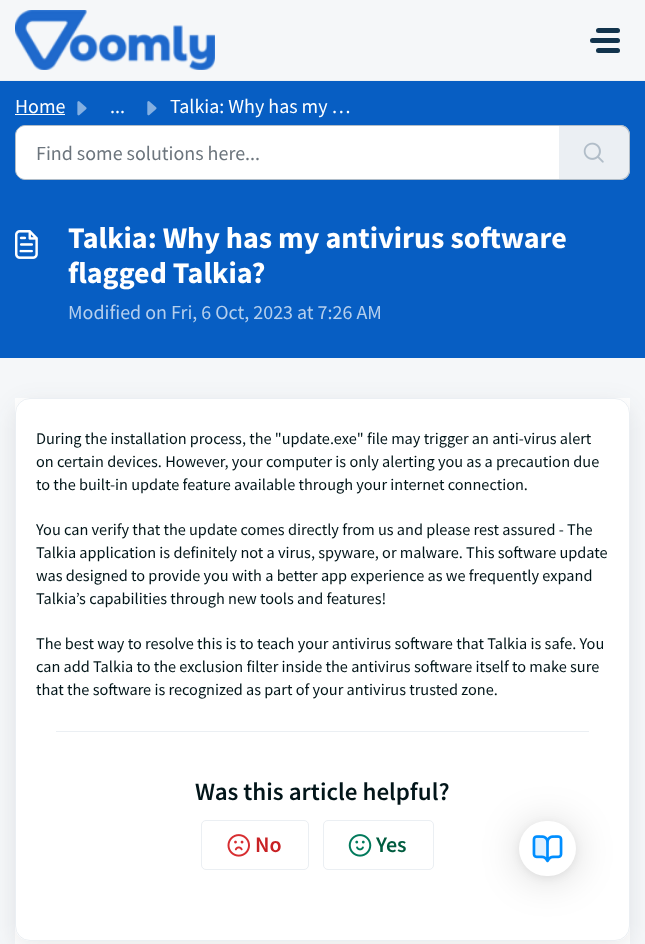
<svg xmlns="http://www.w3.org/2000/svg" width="645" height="944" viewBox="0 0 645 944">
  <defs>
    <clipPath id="clip1"><path d="M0 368H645V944H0ZM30 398H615C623.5 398 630 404.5 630 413V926C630 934.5 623.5 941 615 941H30C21.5 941 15 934.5 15 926V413C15 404.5 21.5 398 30 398Z" clip-rule="evenodd"/></clipPath>
  </defs>
  <rect width="100%" height="100%" fill="rgb(245,247,249)"/>
  <rect x="0" y="80" width="645" height="1" fill="rgb(235,239,243)"/>
  <image x="15" y="10" width="200" height="60" href="pic1.png"/>
  <rect x="596" y="28" width="24" height="5" rx="2.5" fill="rgb(18,52,77)"/>
  <rect x="590" y="38" width="30" height="5" rx="2.5" fill="rgb(18,52,77)"/>
  <rect x="596" y="48" width="24" height="5" rx="2.5" fill="rgb(18,52,77)"/>
  <rect x="0" y="81" width="645" height="277" fill="rgb(7,94,195)"/>
  <text x="15" y="113" font-family="Source Sans Pro" font-size="20" fill="rgb(255,255,255)">Home</text>
  <rect x="15" y="114" width="50" height="1" fill="rgb(255,255,255)"/>
  <image x="77" y="101" width="10" height="15" href="pic2.png"/>
  <text x="110" y="113" font-family="Source Sans Pro" font-size="20" fill="rgb(255,255,255)">...</text>
  <image x="147" y="101" width="10" height="15" href="pic3.png"/>
  <text x="170" y="113" font-family="Source Sans Pro" font-size="20" fill="rgb(255,255,255)">Talkia: Why has my …</text>
  <path d="M25 125.5H559.5V179.5H25C20 179.5 15.5 175 15.5 170V135C15.5 130 20 125.5 25 125.5Z" fill="rgb(255,255,255)" stroke="rgb(177,189,200)"/>
  <text x="36" y="160" font-family="Source Sans Pro" font-size="20" fill="rgb(108,117,125)">Find some solutions here...</text>
  <path d="M559 125H620C625.5 125 630 129.5 630 135V170C630 175.5 625.5 180 620 180H559Z" fill="rgb(235,239,243)"/>
  <path d="M559 125H620C626 125 630 129 630 135V170C630 176 626 180 620 180H559ZM559 126H620C625 126 629 130 629 135V170C629 175 625 179 620 179H559Z" fill="rgb(177,189,200)" fill-rule="evenodd"/>
  <image x="583" y="142" width="21" height="21" href="pic4.png"/>
  <image x="15" y="230" width="23" height="29" href="pic5.png"/>
  <g font-family="Source Sans Pro" font-size="30" font-weight="bold" fill="rgb(255,255,255)">
    <text>
      <tspan x="68" y="248">Talkia: Why has my antivirus software</tspan>
      <tspan x="68" y="283">flagged Talkia?</tspan>
    </text>
  </g>
  <text x="68" y="319" font-family="Source Sans Pro" font-size="20" fill="rgb(181,207,237)">Modified on Fri, 6 Oct, 2023 at 7:26 AM</text>
  <rect x="15" y="398" width="615" height="546" fill="rgb(255,255,255)"/>
  <g clip-path="url(#clip1)">
    <rect x="15" y="405" width="615" height="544" rx="15" fill="rgba(39,49,58,0.1)" filter="blur(12px)"/>
  </g>
  <rect x="15.5" y="398.5" width="614" height="542" rx="14.5" fill="none" stroke="rgb(235,239,243)"/>
  <g font-family="Source Sans Pro" font-size="16.25" fill="rgb(2,21,25)">
    <text>
      <tspan x="36" y="444">During the installation process, the "update.exe" file may trigger an anti-virus alert</tspan>
      <tspan x="36" y="467">on certain devices. However, your computer is only alerting you as a precaution due</tspan>
      <tspan x="36" y="490">to the built-in update feature available through your internet connection.</tspan>
    </text>
    <text>
      <tspan x="36" y="535">You can verify that the update comes directly from us and please rest assured - The</tspan>
      <tspan x="36" y="558">Talkia application is definitely not a virus, spyware, or malware. This software update</tspan>
      <tspan x="36" y="581">was designed to provide you with a better app experience as we frequently expand</tspan>
      <tspan x="36" y="604">Talkia’s capabilities through new tools and features!</tspan>
    </text>
    <text>
      <tspan x="36" y="649">The best way to resolve this is to teach your antivirus software that Talkia is safe. You</tspan>
      <tspan x="36" y="672">can add Talkia to the exclusion filter inside the antivirus software itself to make sure</tspan>
      <tspan x="36" y="695">that the software is recognized as part of your antivirus trusted zone.</tspan>
    </text>
  </g>
  <rect x="56" y="731" width="533" height="1" fill="rgb(235,239,243)"/>
  <text x="195" y="800" font-family="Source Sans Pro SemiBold" font-size="25" font-weight="600" fill="rgb(2,21,25)">Was this article helpful?</text>
  <rect x="201.5" y="820.5" width="107" height="49" rx="4.5" fill="none" stroke="rgb(235,239,243)"/>
  <image x="227" y="834" width="23" height="23" href="pic6.png"/>
  <text x="255" y="852" font-family="Source Sans Pro SemiBold" font-size="22" font-weight="600" fill="rgb(200,33,36)">No</text>
  <rect x="323.5" y="820.5" width="110" height="49" rx="4.5" fill="none" stroke="rgb(235,239,243)"/>
  <image x="348" y="834" width="24" height="23" href="pic7.png"/>
  <text x="376" y="852" font-family="Source Sans Pro SemiBold" font-size="22" font-weight="600" fill="rgb(0,92,63)">Yes</text>
  <rect x="519" y="824" width="57" height="55" rx="27.5" fill="rgba(0,0,0,0.16)" filter="blur(20px)"/>
  <rect x="519" y="823" width="57" height="55" rx="27.5" fill="rgba(0,0,0,0.06)" filter="blur(4px)"/>
  <rect x="519" y="821" width="57" height="55" rx="27.5" fill="rgb(255,255,255)"/>
  <image x="532" y="835" width="31" height="28" href="pic8.png"/>
</svg>
